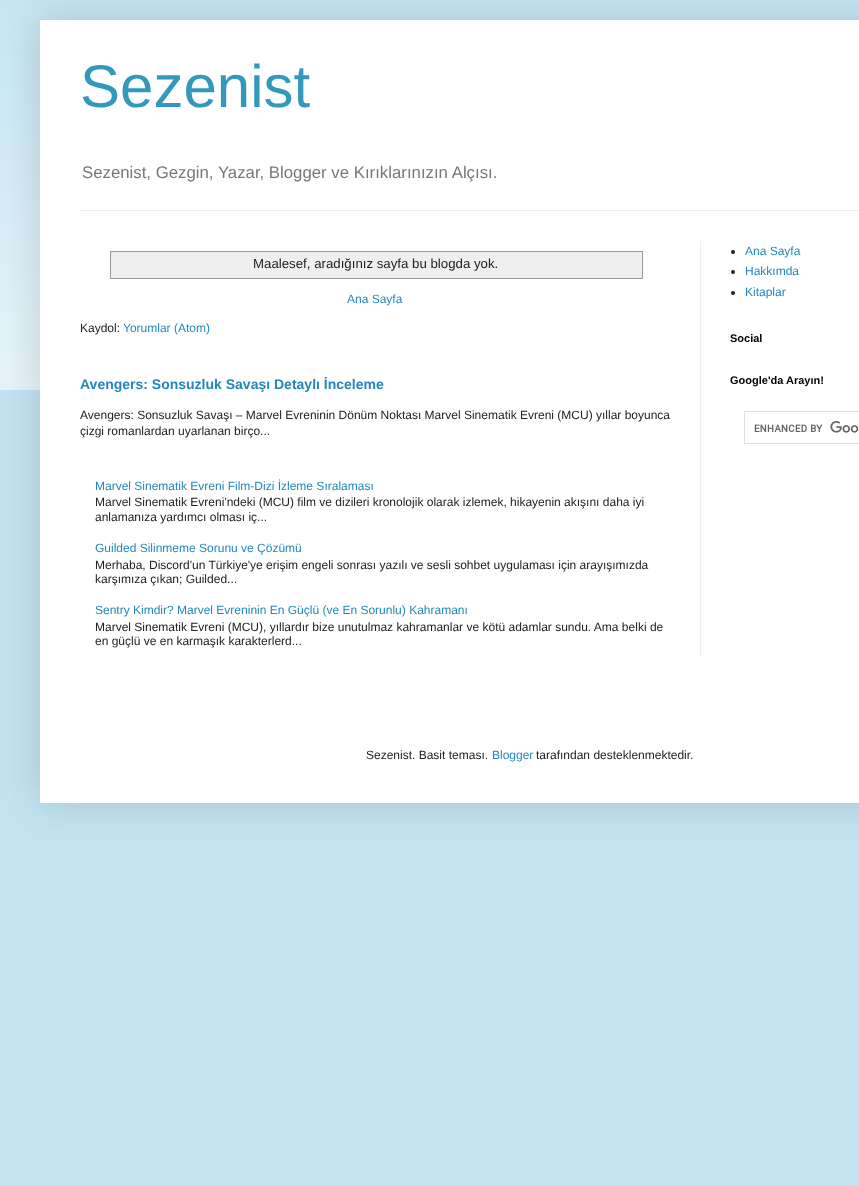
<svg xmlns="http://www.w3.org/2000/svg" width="859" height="1186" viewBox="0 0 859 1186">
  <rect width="100%" height="100%" fill="rgb(194,228,242)"/>
  <image x="0" y="0" width="859" height="390" href="pic1.png"/>
  <rect x="40" y="20" width="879" height="783" fill="rgba(0,0,0,0.15)" filter="blur(20px)"/>
  <rect x="40" y="20" width="819" height="783" fill="rgb(255,255,255)"/>
  <text x="80" y="107" font-family="Liberation Sans" font-size="60" fill="rgb(51,153,187)">Sezenist</text>
  <text x="82" y="178" font-family="Liberation Sans" font-size="16.8" fill="rgb(119,119,119)">Sezenist, Gezgin, Yazar, Blogger ve Kırıklarınızın Alçısı.</text>
  <rect x="80" y="210" width="779" height="1" fill="rgb(238,238,238)"/>
  <rect x="700" y="241" width="1" height="416" fill="rgb(238,238,238)"/>
  <rect x="110.5" y="251.5" width="532" height="27" fill="none" stroke="rgb(153,153,153)"/>
  <rect x="111" y="252" width="531" height="26" fill="rgb(239,239,239)"/>
  <text x="253" y="268" font-family="Liberation Sans" font-size="13.25" fill="rgb(34,34,34)">Maalesef, aradığınız sayfa bu blogda yok.</text>
  <text x="347" y="303" font-family="Liberation Sans" font-size="12" fill="rgb(34,136,187)">Ana Sayfa</text>
  <text x="80" y="332" font-family="Liberation Sans" font-size="12" fill="rgb(34,34,34)">Kaydol:</text>
  <text x="123" y="332" font-family="Liberation Sans" font-size="12" fill="rgb(34,136,187)">Yorumlar (Atom)</text>
  <text x="80" y="389" font-family="Liberation Sans" font-size="14" font-weight="bold" fill="rgb(34,136,187)">Avengers: Sonsuzluk Savaşı Detaylı İnceleme</text>
  <g font-family="Liberation Sans" font-size="12" fill="rgb(34,34,34)">
    <text>
      <tspan x="80" y="419">Avengers: Sonsuzluk Savaşı – Marvel Evreninin Dönüm Noktası Marvel Sinematik Evreni (MCU) yıllar boyunca</tspan>
      <tspan x="80" y="435">çizgi romanlardan uyarlanan birço...</tspan>
    </text>
  </g>
  <text x="95" y="490" font-family="Liberation Sans" font-size="12" fill="rgb(34,136,187)">Marvel Sinematik Evreni Film-Dizi İzleme Sıralaması</text>
  <g font-family="Liberation Sans" font-size="12" fill="rgb(34,34,34)">
    <text>
      <tspan x="95" y="506">Marvel Sinematik Evreni'ndeki (MCU) film ve dizileri kronolojik olarak izlemek, hikayenin akışını daha iyi</tspan>
      <tspan x="95" y="521">anlamanıza yardımcı olması iç...</tspan>
    </text>
  </g>
  <text x="95" y="552" font-family="Liberation Sans" font-size="12" fill="rgb(34,136,187)">Guilded Silinmeme Sorunu ve Çözümü</text>
  <g font-family="Liberation Sans" font-size="12" fill="rgb(34,34,34)">
    <text>
      <tspan x="95" y="569">Merhaba, Discord'un Türkiye'ye erişim engeli sonrası yazılı ve sesli sohbet uygulaması için arayışımızda</tspan>
      <tspan x="95" y="583">karşımıza çıkan; Guilded...</tspan>
    </text>
  </g>
  <text x="95" y="614" font-family="Liberation Sans" font-size="12" fill="rgb(34,136,187)">Sentry Kimdir? Marvel Evreninin En Güçlü (ve En Sorunlu) Kahramanı</text>
  <g font-family="Liberation Sans" font-size="12" fill="rgb(34,34,34)">
    <text>
      <tspan x="95" y="631">Marvel Sinematik Evreni (MCU), yıllardır bize unutulmaz kahramanlar ve kötü adamlar sundu. Ama belki de</tspan>
      <tspan x="95" y="645">en güçlü ve en karmaşık karakterlerd...</tspan>
    </text>
  </g>
  <circle cx="733" cy="252" r="2" fill="rgb(34,34,34)"/>
  <text x="745" y="255" font-family="Liberation Sans" font-size="12" fill="rgb(34,136,187)">Ana Sayfa</text>
  <circle cx="733" cy="272" r="2" fill="rgb(34,34,34)"/>
  <text x="745" y="275" font-family="Liberation Sans" font-size="12" fill="rgb(34,136,187)">Hakkımda</text>
  <circle cx="733" cy="293" r="2" fill="rgb(34,34,34)"/>
  <text x="745" y="296" font-family="Liberation Sans" font-size="12" fill="rgb(34,136,187)">Kitaplar</text>
  <g font-family="Liberation Sans" font-size="11" font-weight="bold" fill="rgb(0,0,0)">
    <text x="730" y="342">Social</text>
    <text x="730" y="384">Google'da Arayın!</text>
  </g>
  <rect x="744.5" y="411.5" width="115" height="32" fill="none" stroke="rgb(223,225,229)"/>
  <image x="754" y="421" width="105" height="12" href="pic2.png"/>
  <text x="366" y="759" font-family="Liberation Sans" font-size="12" fill="rgb(34,34,34)">Sezenist. Basit teması.</text>
  <text x="492" y="759" font-family="Liberation Sans" font-size="12" fill="rgb(34,136,187)">Blogger</text>
  <text x="536" y="759" font-family="Liberation Sans" font-size="12" fill="rgb(34,34,34)">tarafından desteklenmektedir.</text>
</svg>
